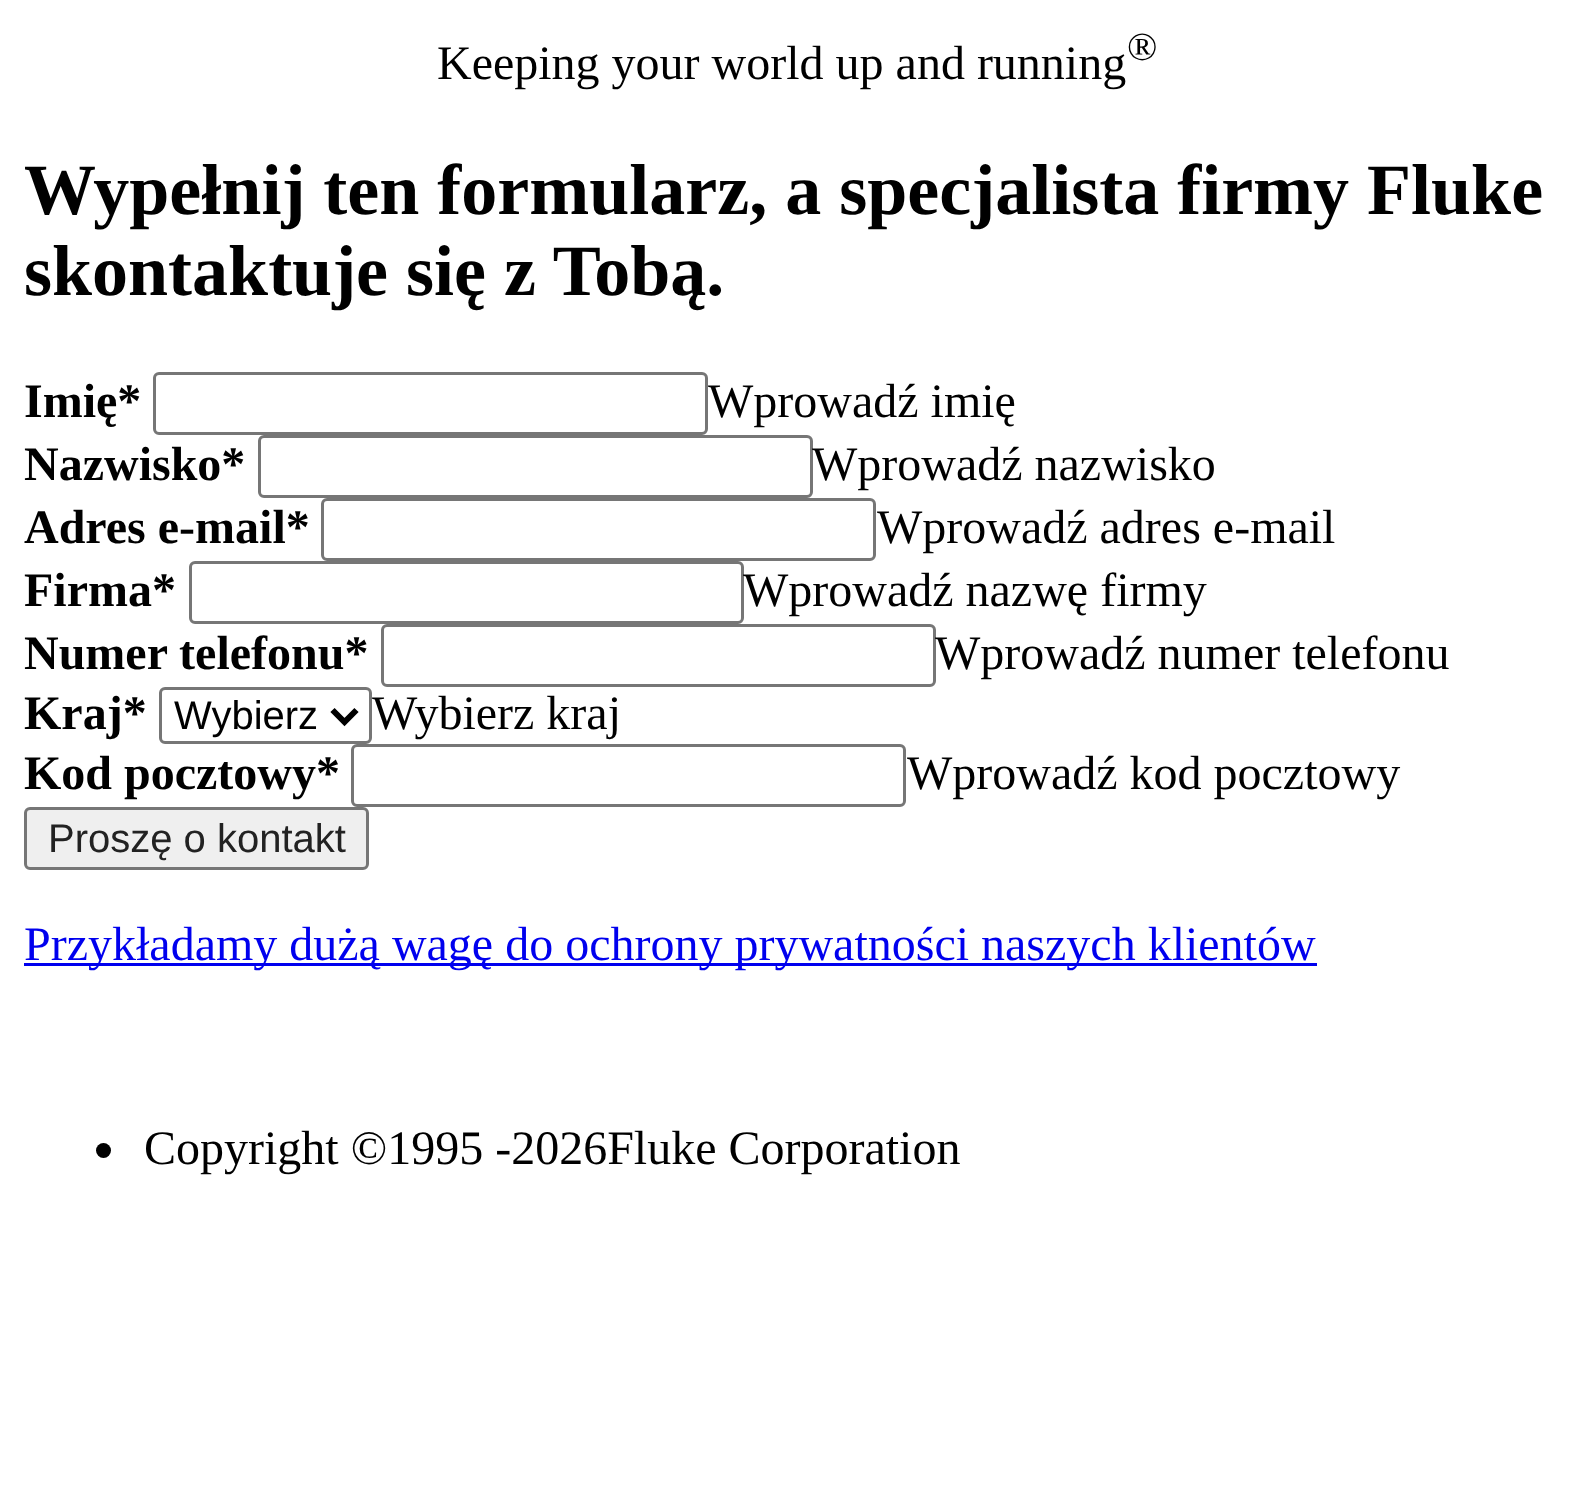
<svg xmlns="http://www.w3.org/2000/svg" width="1572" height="1496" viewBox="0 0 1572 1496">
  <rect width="100%" height="100%" fill="rgb(255,255,255)"/>
  <text x="437" y="79" font-family="Liberation Serif" font-size="48" fill="rgb(0,0,0)">Keeping your world up and running</text>
  <text x="1127" y="60" font-family="Liberation Serif" font-size="40" fill="rgb(0,0,0)">®</text>
  <g font-family="Liberation Serif" font-size="72" font-weight="bold" fill="rgb(0,0,0)">
    <text>
      <tspan x="24" y="214">Wypełnij ten formularz, a specjalista firmy Fluke</tspan>
      <tspan x="24" y="295">skontaktuje się z Tobą.</tspan>
    </text>
  </g>
  <text x="24" y="417" font-family="Liberation Serif" font-size="48" font-weight="bold" fill="rgb(0,0,0)">Imię*</text>
  <rect x="154.5" y="373.5" width="552" height="60" rx="4.5" fill="none" stroke="rgb(118,118,118)" stroke-width="3"/>
  <text x="708" y="417" font-family="Liberation Serif" font-size="48" fill="rgb(0,0,0)">Wprowadź imię</text>
  <text x="24" y="480" font-family="Liberation Serif" font-size="48" font-weight="bold" fill="rgb(0,0,0)">Nazwisko*</text>
  <rect x="259.5" y="436.5" width="552" height="60" rx="4.5" fill="none" stroke="rgb(118,118,118)" stroke-width="3"/>
  <text x="812" y="480" font-family="Liberation Serif" font-size="48" fill="rgb(0,0,0)">Wprowadź nazwisko</text>
  <text x="24" y="543" font-family="Liberation Serif" font-size="48" font-weight="bold" fill="rgb(0,0,0)">Adres e-mail*</text>
  <rect x="322.5" y="499.5" width="552" height="60" rx="4.5" fill="none" stroke="rgb(118,118,118)" stroke-width="3"/>
  <text x="877" y="543" font-family="Liberation Serif" font-size="48" fill="rgb(0,0,0)">Wprowadź adres e-mail</text>
  <text x="24" y="606" font-family="Liberation Serif" font-size="48" font-weight="bold" fill="rgb(0,0,0)">Firma*</text>
  <rect x="190.5" y="562.5" width="552" height="60" rx="4.5" fill="none" stroke="rgb(118,118,118)" stroke-width="3"/>
  <text x="743" y="606" font-family="Liberation Serif" font-size="48" fill="rgb(0,0,0)">Wprowadź nazwę firmy</text>
  <text x="24" y="669" font-family="Liberation Serif" font-size="48" font-weight="bold" fill="rgb(0,0,0)">Numer telefonu*</text>
  <rect x="382.5" y="625.5" width="552" height="60" rx="4.5" fill="none" stroke="rgb(118,118,118)" stroke-width="3"/>
  <text x="935" y="669" font-family="Liberation Serif" font-size="48" fill="rgb(0,0,0)">Wprowadź numer telefonu</text>
  <text x="24" y="729" font-family="Liberation Serif" font-size="48" font-weight="bold" fill="rgb(0,0,0)">Kraj*</text>
  <rect x="160.5" y="688.5" width="210" height="54" rx="4.5" fill="none" stroke="rgb(118,118,118)" stroke-width="3"/>
  <path d="M332.5 710L344.5 722L356.5 710" fill="none" stroke="rgb(0,0,0)" stroke-width="6"/>
  <text x="174" y="729" font-family="Liberation Sans" font-size="40" fill="rgb(0,0,0)">Wybierz</text>
  <text x="372" y="729" font-family="Liberation Serif" font-size="48" fill="rgb(0,0,0)">Wybierz kraj</text>
  <text x="24" y="789" font-family="Liberation Serif" font-size="48" font-weight="bold" fill="rgb(0,0,0)">Kod pocztowy*</text>
  <rect x="352.5" y="745.5" width="552" height="60" rx="4.5" fill="none" stroke="rgb(118,118,118)" stroke-width="3"/>
  <text x="907" y="789" font-family="Liberation Serif" font-size="48" fill="rgb(0,0,0)">Wprowadź kod pocztowy</text>
  <rect x="25.5" y="808.5" width="342" height="60" rx="4.5" fill="rgb(239,239,239)" stroke="rgb(118,118,118)" stroke-width="3"/>
  <text x="48" y="852" font-family="Liberation Sans" font-size="40" fill="rgb(34,34,34)">Proszę o kontakt</text>
  <rect x="24" y="963" width="1293" height="3" fill="rgb(0,0,238)"/>
  <text x="24" y="960" font-family="Liberation Serif" font-size="48" fill="rgb(0,0,238)">Przykładamy dużą wagę do ochrony prywatności naszych klientów</text>
  <circle cx="103.5" cy="1150.5" r="7.5" fill="rgb(0,0,0)"/>
  <text x="144" y="1164" font-family="Liberation Serif" font-size="48" fill="rgb(0,0,0)">Copyright ©1995 -2026Fluke Corporation</text>
</svg>
